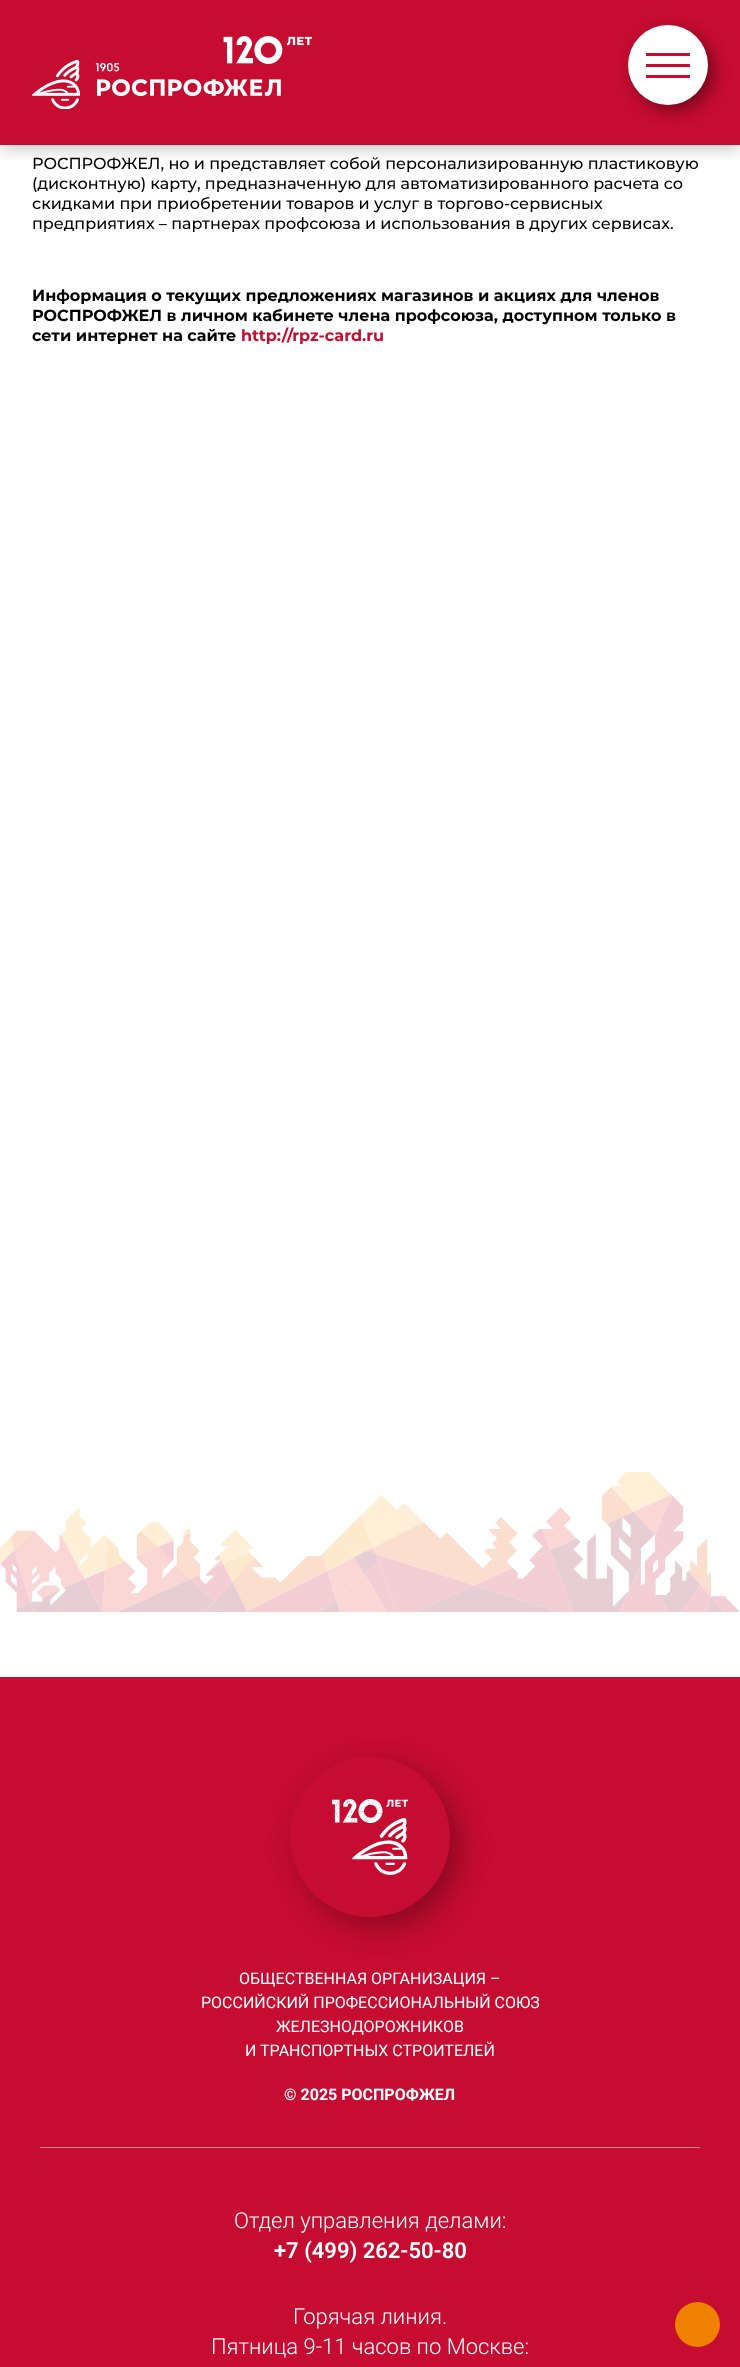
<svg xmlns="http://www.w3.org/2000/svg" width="740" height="2367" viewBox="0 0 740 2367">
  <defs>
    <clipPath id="clip1"><rect x="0" y="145" width="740" height="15"/></clipPath>
    <clipPath id="clip2"><path d="M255 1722H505V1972H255ZM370 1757C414 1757 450 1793 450 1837C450 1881 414 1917 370 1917C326 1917 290 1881 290 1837C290 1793 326 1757 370 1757Z" clip-rule="evenodd"/></clipPath>
  </defs>
  <rect width="100%" height="100%" fill="rgb(255,255,255)"/>
  <rect x="0" y="0" width="740" height="145" fill="rgb(198,12,48)"/>
  <g clip-path="url(#clip1)">
    <rect x="0" y="5" width="740" height="145" fill="rgba(0,0,0,0.2)" filter="blur(8px)"/>
  </g>
  <image x="32" y="36" width="280" height="73" href="pic1.png"/>
  <rect x="634" y="31" width="80" height="80" rx="40" fill="rgba(0,0,0,0.4)" filter="blur(7.5px)"/>
  <circle cx="668" cy="65" r="40" fill="rgb(255,255,255)"/>
  <rect x="646" y="64" width="44" height="3" fill="rgb(198,12,48)"/>
  <rect x="646" y="53" width="44" height="3" fill="rgb(198,12,48)"/>
  <rect x="646" y="75" width="44" height="3" fill="rgb(198,12,48)"/>
  <g font-family="Montserrat" font-size="16" font-weight="500" fill="rgb(0,0,0)">
    <text>
      <tspan x="32" y="169">РОСПРОФЖЕЛ, но и представляет собой персонализированную пластиковую</tspan>
      <tspan x="32" y="189">(дисконтную) карту, предназначенную для автоматизированного расчета со</tspan>
      <tspan x="32" y="209">скидками при приобретении товаров и услуг в торгово-сервисных</tspan>
      <tspan x="32" y="229">предприятиях – партнерах профсоюза и использования в других сервисах.</tspan>
    </text>
  </g>
  <g font-family="Montserrat" font-size="16" font-weight="bold" fill="rgb(0,0,0)">
    <text>
      <tspan x="32" y="301">Информация о текущих предложениях магазинов и акциях для членов</tspan>
      <tspan x="32" y="321">РОСПРОФЖЕЛ в личном кабинете члена профсоюза, доступном только в</tspan>
      <tspan x="32" y="341">сети интернет на сайте</tspan>
    </text>
  </g>
  <text x="241" y="341" font-family="Montserrat" font-size="16" font-weight="bold" fill="rgb(198,12,48)">http://rpz-card.ru</text>
  <image x="0" y="1472" width="740" height="140" href="pic2.png"/>
  <rect x="0" y="1677" width="740" height="690" fill="rgb(198,12,48)"/>
  <g clip-path="url(#clip2)">
    <rect x="300" y="1767" width="160" height="160" rx="80" fill="rgba(0,0,0,0.3)" filter="blur(14.5px)"/>
  </g>
  <image x="332" y="1799" width="76" height="76" href="pic3.png"/>
  <rect x="40" y="2147" width="660" height="1" fill="rgb(205,133,150)"/>
  <g font-family="Roboto" font-size="16" fill="rgb(255,255,255)">
    <text x="239" y="1984">ОБЩЕСТВЕННАЯ ОРГАНИЗАЦИЯ –</text>
    <text x="201" y="2008">РОССИЙСКИЙ ПРОФЕССИОНАЛЬНЫЙ СОЮЗ</text>
    <text x="276" y="2032">ЖЕЛЕЗНОДОРОЖНИКОВ</text>
    <text x="245" y="2056">И ТРАНСПОРТНЫХ СТРОИТЕЛЕЙ</text>
  </g>
  <text x="284" y="2100" font-family="Roboto" font-size="16" font-weight="bold" fill="rgb(255,255,255)">© 2025 РОСПРОФЖЕЛ</text>
  <text x="234" y="2228" font-family="Roboto" font-size="22" font-weight="300" fill="rgb(255,255,255)">Отдел управления делами:</text>
  <text x="274" y="2258" font-family="Roboto" font-size="22" font-weight="600" fill="rgb(255,255,255)">+7 (499) 262-50-80</text>
  <g font-family="Roboto" font-size="22" font-weight="300" fill="rgb(255,255,255)">
    <text x="293" y="2324">Горячая линия.</text>
    <text x="211" y="2354">Пятница 9-11 часов по Москве:</text>
  </g>
  <circle cx="697.5" cy="2324.5" r="22.5" fill="rgb(239,128,0)"/>
</svg>
